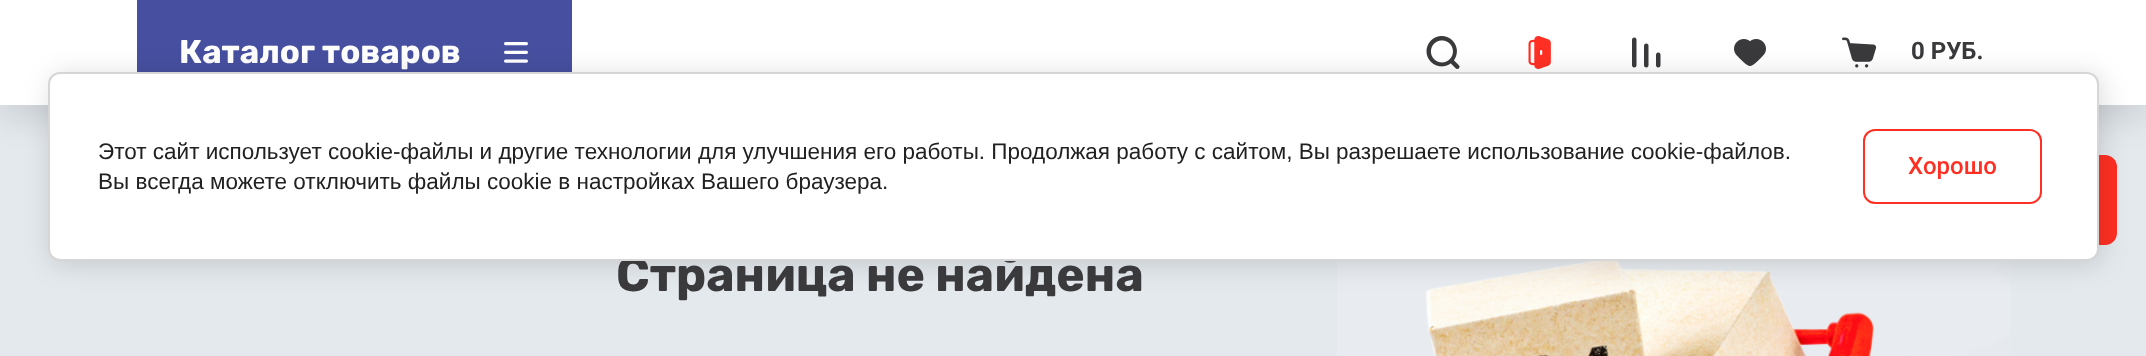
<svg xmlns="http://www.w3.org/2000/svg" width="2146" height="356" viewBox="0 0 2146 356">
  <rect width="100%" height="100%" fill="rgb(228,233,238)"/>
  <rect x="2027" y="155" width="90" height="90" rx="12" fill="rgb(255,48,35)"/>
  <rect x="0" y="15" width="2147" height="105" fill="rgba(0,0,0,0.1)" filter="blur(15px)"/>
  <rect x="0" y="0" width="2146" height="105" fill="rgb(255,255,255)"/>
  <rect x="137" y="0" width="435" height="72" fill="rgb(71,80,160)"/>
  <text x="179" y="63" font-family="Rubik" font-size="33" font-weight="bold" fill="rgb(255,255,255)">Каталог товаров</text>
  <image x="504" y="42" width="24" height="21" href="pic1.png"/>
  <image x="1426" y="36" width="34" height="33" href="pic2.png"/>
  <image x="1528" y="36" width="23" height="33" href="pic3.png"/>
  <image x="1632" y="37" width="29" height="31" href="pic4.png"/>
  <image x="1734" y="39" width="32" height="27" href="pic5.png"/>
  <image x="1842" y="37" width="35" height="31" href="pic6.png"/>
  <text x="1911" y="59" font-family="Roboto" font-size="24" font-weight="bold" fill="rgb(58,58,60)">0 РУБ.</text>
  <image x="1337" y="261" width="674" height="95" href="pic7.png"/>
  <rect x="51" y="75" width="2051" height="189" rx="12" fill="rgba(0,0,0,0.14)" filter="blur(13.5px)"/>
  <text x="616" y="291" font-family="Rubik" font-size="48" font-weight="bold" fill="rgb(58,58,60)">Страница не найдена</text>
  <rect x="49" y="73" width="2049" height="187" rx="11" fill="rgb(255,255,255)" stroke="rgb(214,214,214)" stroke-width="2"/>
  <g font-family="Liberation Sans" font-size="22.5" fill="rgb(33,33,33)">
    <text>
      <tspan x="98" y="159">Этот сайт использует cookie-файлы и другие технологии для улучшения его работы. Продолжая работу с сайтом, Вы разрешаете использование cookie-файлов.</tspan>
      <tspan x="98" y="189">Вы всегда можете отключить файлы cookie в настройках Вашего браузера.</tspan>
    </text>
  </g>
  <rect x="1864" y="130" width="177" height="73" rx="11" fill="none" stroke="rgb(255,48,35)" stroke-width="2"/>
  <text x="1908" y="174" font-family="Roboto" font-size="24" font-weight="500" fill="rgb(255,48,35)">Хорошо</text>
</svg>
